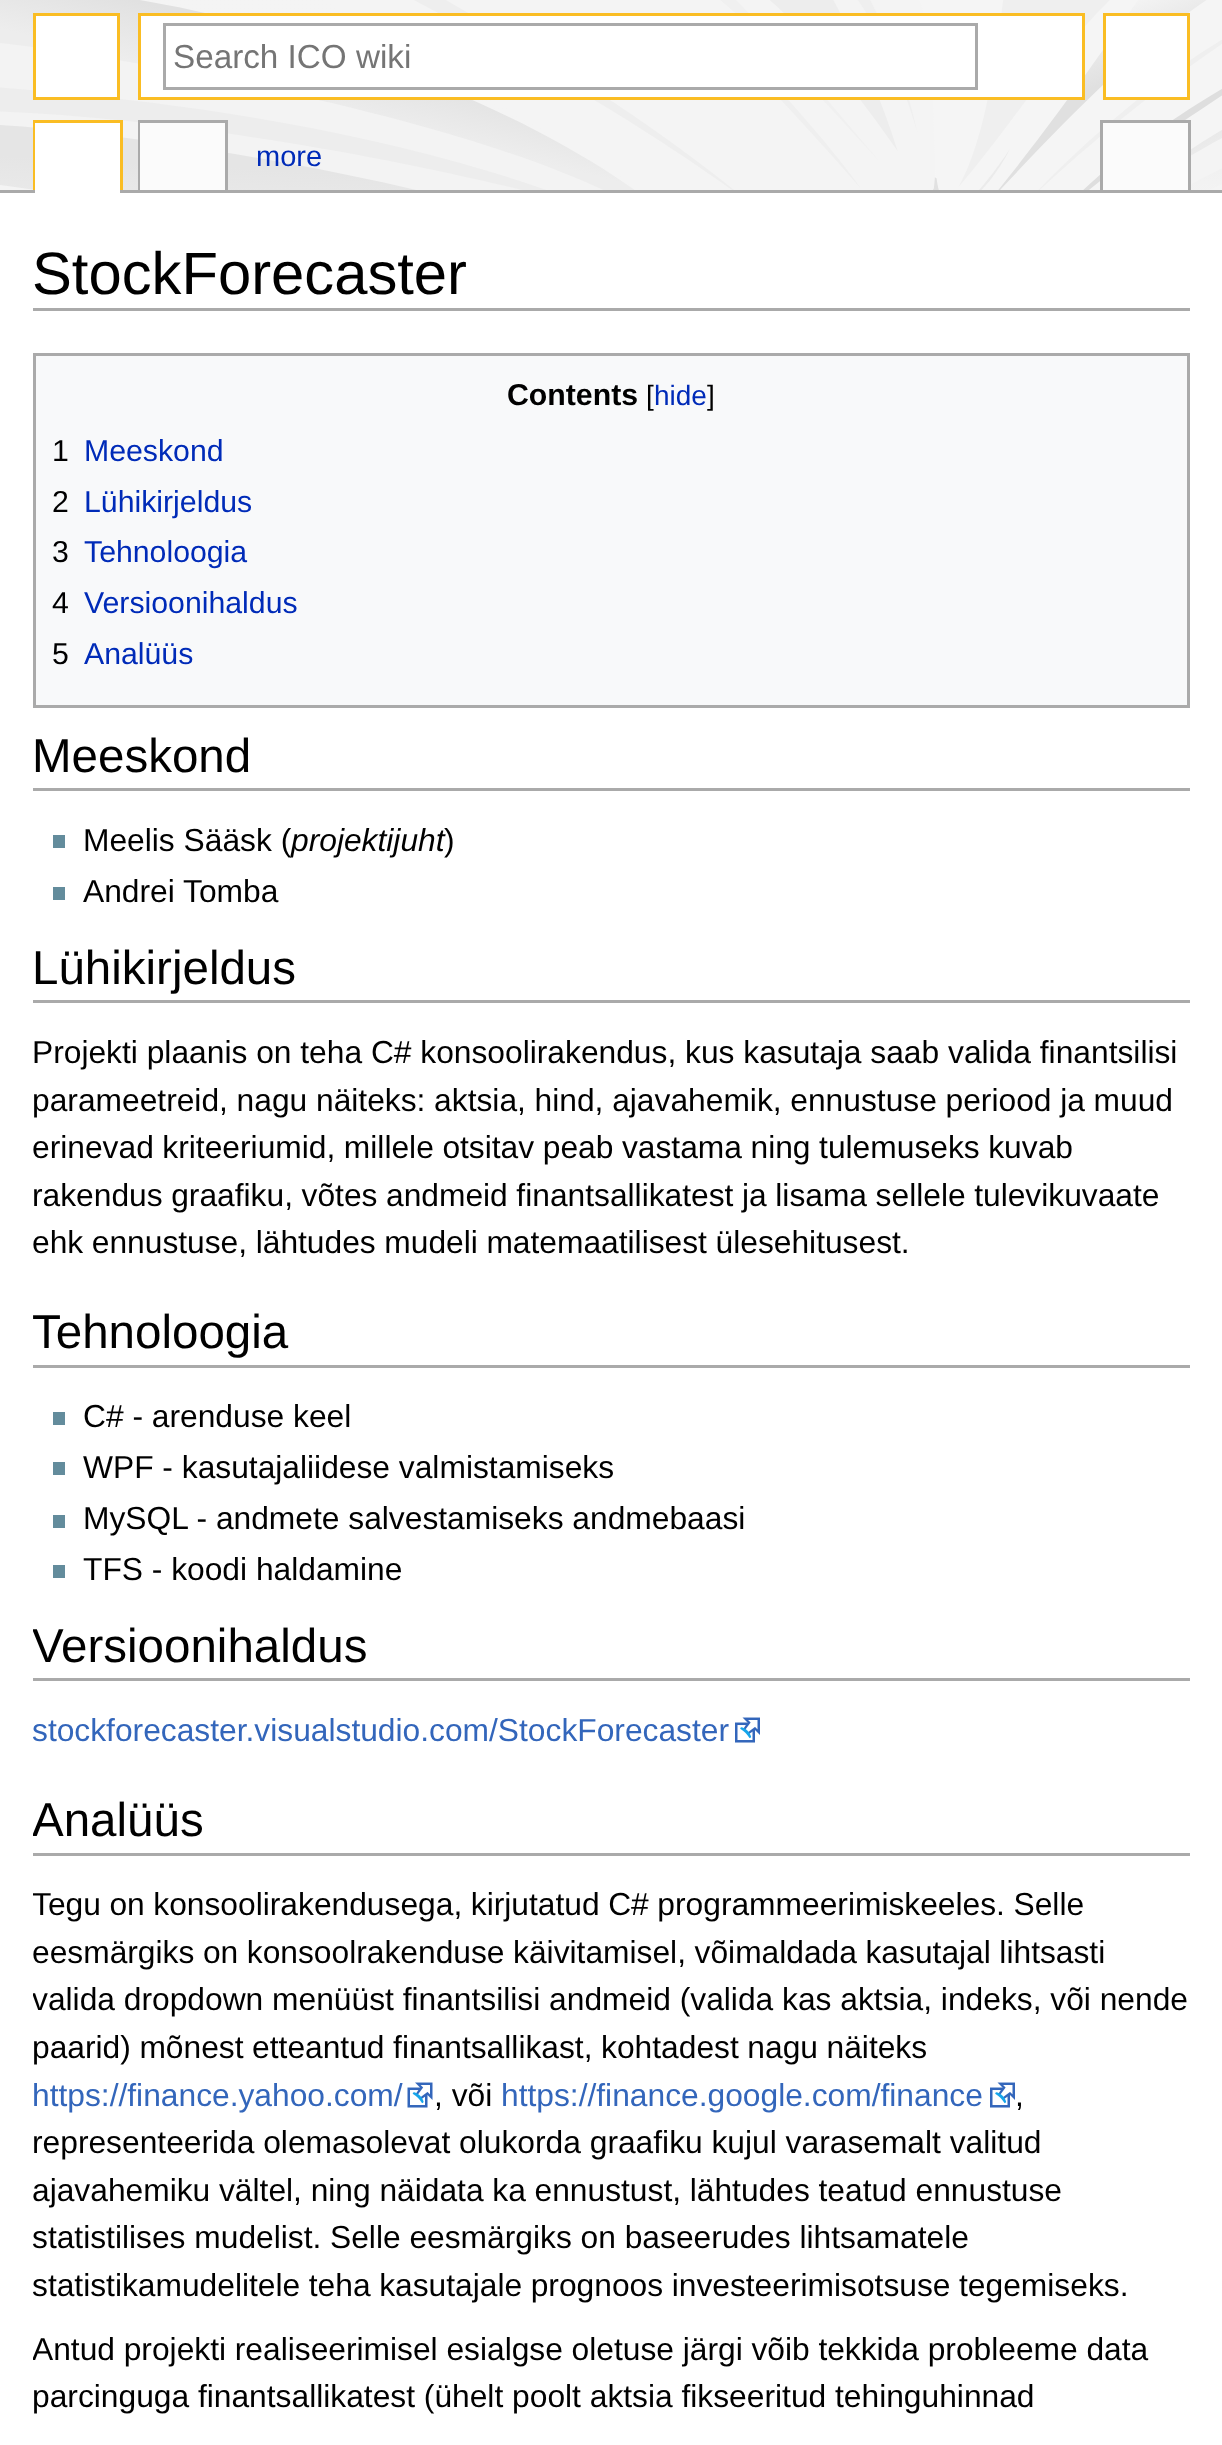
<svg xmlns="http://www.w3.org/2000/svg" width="1222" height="2445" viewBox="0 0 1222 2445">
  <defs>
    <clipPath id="clip1"><rect x="33" y="315" width="1157" height="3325"/></clipPath>
  </defs>
  <rect width="100%" height="100%" fill="rgb(255,255,255)"/>
  <image x="0" y="0" width="1222" height="190" href="pic1.png"/>
  <rect x="34.5" y="14.5" width="84" height="84" fill="rgb(255,255,255)" stroke="rgb(250,189,35)" stroke-width="3"/>
  <rect x="139.5" y="14.5" width="944" height="84" fill="rgb(255,255,255)" stroke="rgb(250,189,35)" stroke-width="3"/>
  <rect x="164.5" y="24.5" width="812" height="64" fill="none" stroke="rgb(170,170,170)" stroke-width="3"/>
  <text x="173" y="68" font-family="Liberation Sans" font-size="33.25" fill="rgb(117,117,117)">Search ICO wiki</text>
  <rect x="1104.5" y="14.5" width="84" height="84" fill="rgb(255,255,255)" stroke="rgb(250,189,35)" stroke-width="3"/>
  <rect x="33" y="120" width="90" height="3" fill="rgb(250,189,35)"/>
  <rect x="120" y="120" width="3" height="73" fill="rgb(250,189,35)"/>
  <rect x="33" y="120" width="3" height="73" fill="rgb(250,189,35)"/>
  <rect x="138" y="120" width="90" height="3" fill="rgb(170,170,170)"/>
  <rect x="225" y="120" width="3" height="73" fill="rgb(170,170,170)"/>
  <rect x="138" y="120" width="3" height="73" fill="rgb(170,170,170)"/>
  <rect x="1100" y="120" width="90" height="3" fill="rgb(170,170,170)"/>
  <rect x="1188" y="120" width="3" height="73" fill="rgb(170,170,170)"/>
  <rect x="1100" y="120" width="3" height="73" fill="rgb(170,170,170)"/>
  <rect x="0" y="190" width="1222" height="3" fill="rgb(170,170,170)"/>
  <rect x="35" y="123" width="85" height="70" fill="rgb(255,255,255)"/>
  <rect x="140" y="123" width="85" height="67" fill="rgb(251,251,251)"/>
  <text x="256" y="166" font-family="Liberation Sans" font-size="29" fill="rgb(0,43,184)">more</text>
  <rect x="1103" y="123" width="85" height="67" fill="rgb(251,251,251)"/>
  <rect x="33" y="308" width="1157" height="3" fill="rgb(170,170,170)"/>
  <text x="32" y="294" font-family="Liberation Sans" font-size="59.75" fill="rgb(0,0,0)">StockForecaster</text>
  <rect x="34.5" y="354.5" width="1154" height="352" fill="rgb(248,249,250)" stroke="rgb(170,170,170)" stroke-width="3"/>
  <text x="507" y="405" font-family="Liberation Sans" font-size="30.25" font-weight="bold" fill="rgb(0,0,0)">Contents</text>
  <text x="646" y="405" font-family="Liberation Sans" font-size="28" fill="rgb(0,0,0)">[</text>
  <text x="654" y="405" font-family="Liberation Sans" font-size="28" fill="rgb(0,43,184)">hide</text>
  <text x="707" y="405" font-family="Liberation Sans" font-size="28" fill="rgb(0,0,0)">]</text>
  <text x="52" y="461" font-family="Liberation Sans" font-size="30.25" fill="rgb(0,0,0)">1</text>
  <text x="84" y="461" font-family="Liberation Sans" font-size="30.25" fill="rgb(0,43,184)">Meeskond</text>
  <text x="52" y="512" font-family="Liberation Sans" font-size="30.25" fill="rgb(0,0,0)">2</text>
  <text x="84" y="512" font-family="Liberation Sans" font-size="30.25" fill="rgb(0,43,184)">Lühikirjeldus</text>
  <text x="52" y="562" font-family="Liberation Sans" font-size="30.25" fill="rgb(0,0,0)">3</text>
  <text x="84" y="562" font-family="Liberation Sans" font-size="30.25" fill="rgb(0,43,184)">Tehnoloogia</text>
  <text x="52" y="613" font-family="Liberation Sans" font-size="30.25" fill="rgb(0,0,0)">4</text>
  <text x="84" y="613" font-family="Liberation Sans" font-size="30.25" fill="rgb(0,43,184)">Versioonihaldus</text>
  <text x="52" y="664" font-family="Liberation Sans" font-size="30.25" fill="rgb(0,0,0)">5</text>
  <text x="84" y="664" font-family="Liberation Sans" font-size="30.25" fill="rgb(0,43,184)">Analüüs</text>
  <rect x="33" y="788" width="1157" height="3" fill="rgb(170,170,170)"/>
  <text x="32" y="772" font-family="Liberation Sans" font-size="47.5" fill="rgb(0,0,0)">Meeskond</text>
  <rect x="53" y="835" width="12" height="13" fill="rgb(99,140,156)"/>
  <text x="83" y="851" font-family="Liberation Sans" font-size="31.75" fill="rgb(0,0,0)">Meelis Sääsk (</text>
  <text x="291" y="851" font-family="Liberation Sans" font-size="31.75" font-style="italic" fill="rgb(0,0,0)">projektijuht</text>
  <text x="444" y="851" font-family="Liberation Sans" font-size="31.75" fill="rgb(0,0,0)">)</text>
  <rect x="53" y="887" width="12" height="13" fill="rgb(99,140,156)"/>
  <text x="83" y="902" font-family="Liberation Sans" font-size="31.75" fill="rgb(0,0,0)">Andrei Tomba</text>
  <rect x="33" y="1000" width="1157" height="3" fill="rgb(170,170,170)"/>
  <text x="32" y="984" font-family="Liberation Sans" font-size="47.5" fill="rgb(0,0,0)">Lühikirjeldus</text>
  <g font-family="Liberation Sans" font-size="31.75" fill="rgb(0,0,0)">
    <text>
      <tspan x="32" y="1063">Projekti plaanis on teha C# konsoolirakendus, kus kasutaja saab valida finantsilisi</tspan>
      <tspan x="32" y="1111" word-spacing="-0.1">parameetreid, nagu näiteks: aktsia, hind, ajavahemik, ennustuse periood ja muud</tspan>
      <tspan x="32" y="1158" word-spacing="-0.25">erinevad kriteeriumid, millele otsitav peab vastama ning tulemuseks kuvab</tspan>
      <tspan x="32" y="1206" word-spacing="-0.25">rakendus graafiku, võtes andmeid finantsallikatest ja lisama sellele tulevikuvaate</tspan>
      <tspan x="32" y="1253" word-spacing="-0.25">ehk ennustuse, lähtudes mudeli matemaatilisest ülesehitusest.</tspan>
    </text>
  </g>
  <rect x="33" y="1365" width="1157" height="3" fill="rgb(170,170,170)"/>
  <g clip-path="url(#clip1)">
    <text x="32" y="1348" font-family="Liberation Sans" font-size="47.5" fill="rgb(0,0,0)">Tehnoloogia</text>
  </g>
  <rect x="53" y="1412" width="12" height="13" fill="rgb(99,140,156)"/>
  <text x="83" y="1427" font-family="Liberation Sans" font-size="31.75" fill="rgb(0,0,0)">C# - arenduse keel</text>
  <rect x="53" y="1462" width="12" height="13" fill="rgb(99,140,156)"/>
  <text x="83" y="1478" font-family="Liberation Sans" font-size="31.75" fill="rgb(0,0,0)">WPF - kasutajaliidese valmistamiseks</text>
  <rect x="53" y="1515" width="12" height="13" fill="rgb(99,140,156)"/>
  <text x="83" y="1529" font-family="Liberation Sans" font-size="31.75" fill="rgb(0,0,0)">MySQL - andmete salvestamiseks andmebaasi</text>
  <rect x="53" y="1565" width="12" height="13" fill="rgb(99,140,156)"/>
  <text x="83" y="1580" font-family="Liberation Sans" font-size="31.75" fill="rgb(0,0,0)">TFS - koodi haldamine</text>
  <rect x="33" y="1678" width="1157" height="3" fill="rgb(170,170,170)"/>
  <g clip-path="url(#clip1)">
    <text x="32" y="1662" font-family="Liberation Sans" font-size="47.5" fill="rgb(0,0,0)">Versioonihaldus</text>
  </g>
  <text x="32" y="1741" font-family="Liberation Sans" font-size="31.75" fill="rgb(51,102,187)">stockforecaster.visualstudio.com/StockForecaster</text>
  <image x="735" y="1717" width="25" height="26" href="pic2.png"/>
  <rect x="33" y="1853" width="1157" height="3" fill="rgb(170,170,170)"/>
  <g clip-path="url(#clip1)">
    <text x="32" y="1836" font-family="Liberation Sans" font-size="47.5" fill="rgb(0,0,0)">Analüüs</text>
    <text x="32" y="1915" word-spacing="-0.25" font-family="Liberation Sans" font-size="31.75" fill="rgb(0,0,0)">Tegu on konsoolirakendusega, kirjutatud C# programmeerimiskeeles. Selle</text>
  </g>
  <text x="32" y="1963" word-spacing="-0.25" font-family="Liberation Sans" font-size="31.75" fill="rgb(0,0,0)">eesmärgiks on konsoolrakenduse käivitamisel, võimaldada kasutajal lihtsasti</text>
  <g clip-path="url(#clip1)">
    <text x="32" y="2010" font-family="Liberation Sans" font-size="31.75" fill="rgb(0,0,0)">valida dropdown menüüst finantsilisi andmeid (valida kas aktsia, indeks, või nende</text>
  </g>
  <text x="32" y="2058" word-spacing="-0.25" font-family="Liberation Sans" font-size="31.75" fill="rgb(0,0,0)">paarid) mõnest etteantud finantsallikast, kohtadest nagu näiteks</text>
  <text x="32" y="2106" font-family="Liberation Sans" font-size="31.75" fill="rgb(51,102,187)">https://finance.yahoo.com/</text>
  <image x="407" y="2082" width="26" height="26" href="pic3.png"/>
  <text x="434" y="2106" font-family="Liberation Sans" font-size="31.75" fill="rgb(0,0,0)">, või</text>
  <text x="501" y="2106" font-family="Liberation Sans" font-size="31.75" fill="rgb(51,102,187)">https://finance.google.com/finance</text>
  <image x="990" y="2082" width="25" height="26" href="pic2.png"/>
  <g font-family="Liberation Sans" font-size="31.75" fill="rgb(0,0,0)">
    <text x="1015" y="2106">,</text>
    <text>
      <tspan x="32" y="2153">representeerida olemasolevat olukorda graafiku kujul varasemalt valitud</tspan>
      <tspan x="32" y="2201" word-spacing="-0.1">ajavahemiku vältel, ning näidata ka ennustust, lähtudes teatud ennustuse</tspan>
      <tspan x="32" y="2248">statistilises mudelist.</tspan>
    </text>
    <text x="330" y="2248">Selle eesmärgiks on baseerudes lihtsamatele</text>
    <text x="32" y="2296" word-spacing="-0.25">statistikamudelitele teha kasutajale prognoos investeerimisotsuse tegemiseks.</text>
  </g>
  <g clip-path="url(#clip1)">
    <text x="32" y="2360" word-spacing="-0.1" font-family="Liberation Sans" font-size="31.75" fill="rgb(0,0,0)">Antud projekti realiseerimisel esialgse oletuse järgi võib tekkida probleeme data</text>
  </g>
  <text x="32" y="2407" font-family="Liberation Sans" font-size="31.75" fill="rgb(0,0,0)">parcinguga finantsallikatest (ühelt poolt aktsia fikseeritud tehinguhinnad</text>
</svg>
